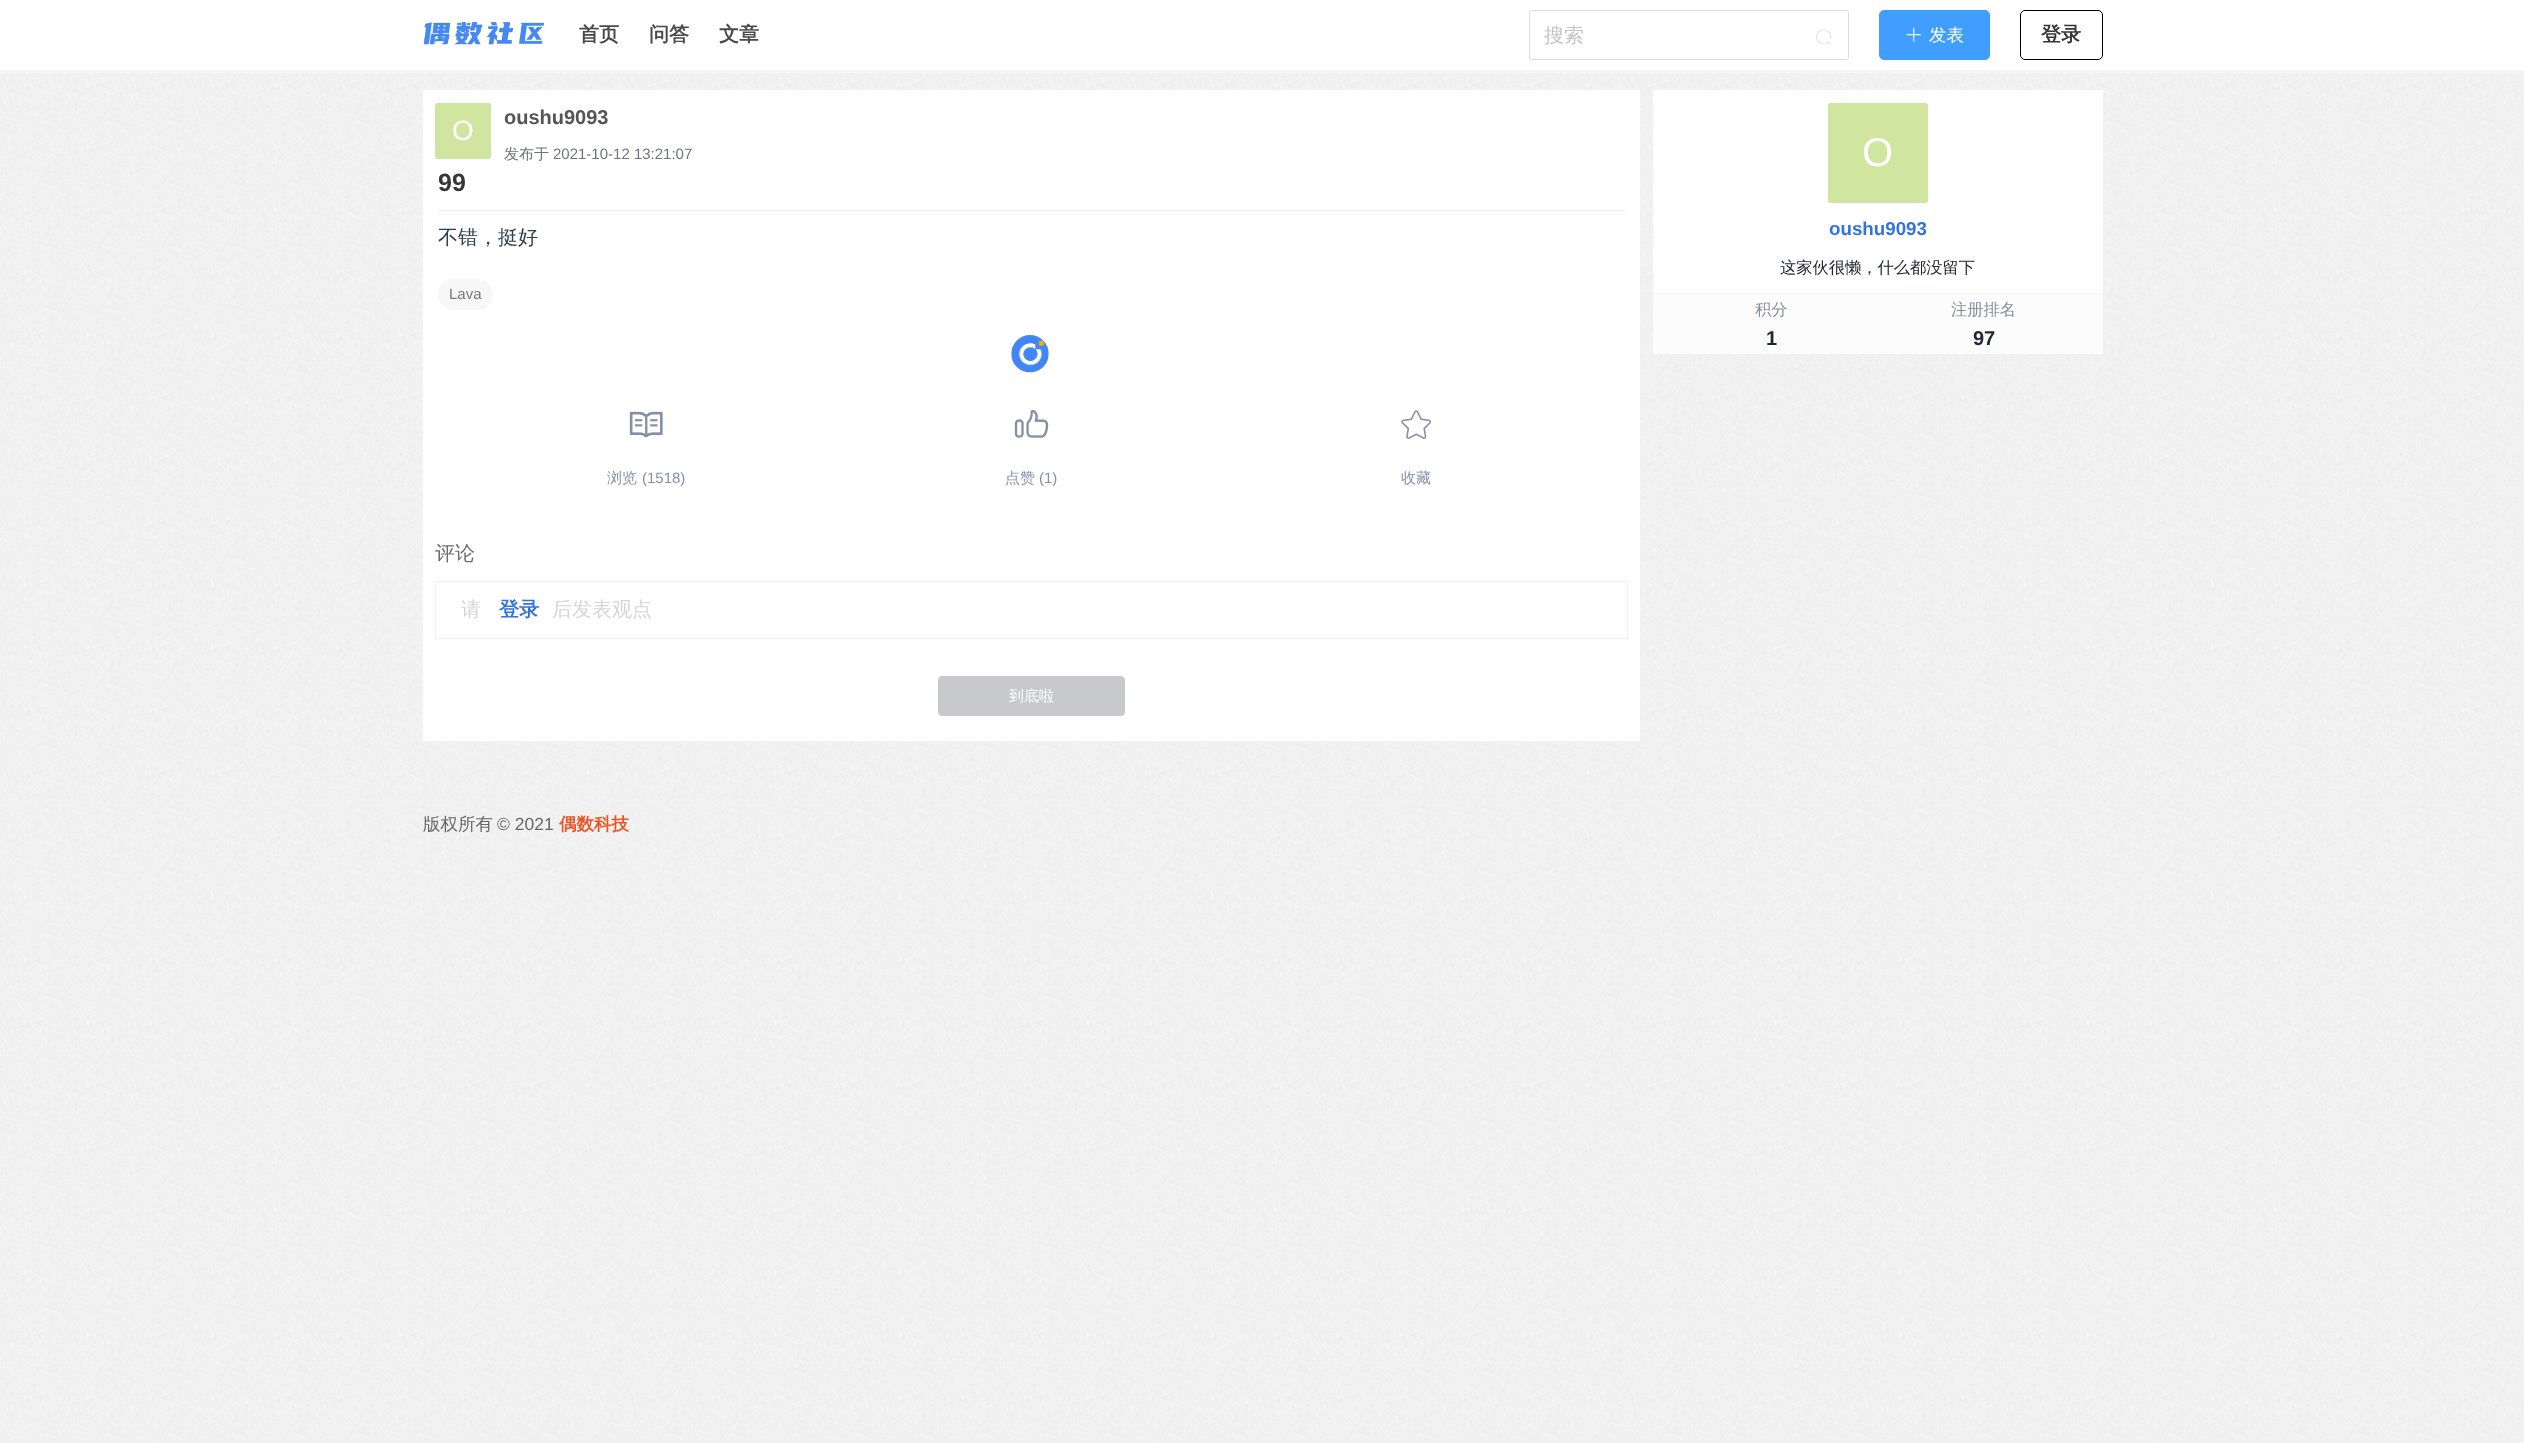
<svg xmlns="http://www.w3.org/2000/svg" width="2524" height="1443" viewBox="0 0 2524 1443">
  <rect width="100%" height="100%" fill="rgb(255,255,255)"/>
  <image x="0" y="73" width="2524" height="1370" href="pic1.png"/>
  <rect x="0" y="70" width="2524" height="3" fill="rgb(245,245,245)"/>
  <image x="423" y="22" width="122" height="23" href="pic2.png"/>
  <g font-family="WenQuanYi Zen Hei" font-size="20" font-weight="bold" fill="rgb(74,74,74)">
    <text x="579" y="41">首页</text>
    <text x="649" y="41">问答</text>
    <text x="719" y="41">文章</text>
  </g>
  <rect x="1529.5" y="10.5" width="319" height="49" rx="2" fill="none" stroke="rgb(219,219,219)"/>
  <text x="1544" y="42" font-family="WenQuanYi Zen Hei" font-size="20" font-weight="500" fill="rgb(195,195,195)">搜索</text>
  <image x="1816" y="29" width="15" height="16" href="pic3.png"/>
  <rect x="1879.5" y="10.5" width="110" height="49" rx="4.5" fill="rgb(64,158,255)" stroke="rgb(64,158,255)"/>
  <image x="1906" y="27" width="15" height="15" href="pic4.png"/>
  <text x="1929" y="41" font-family="WenQuanYi Zen Hei" font-size="17.5" font-weight="500" fill="rgb(255,255,255)">发表</text>
  <rect x="2020.5" y="10.5" width="82" height="49" rx="4.5" fill="none" stroke="rgb(0,0,0)"/>
  <text x="2041" y="41" font-family="WenQuanYi Zen Hei" font-size="20" font-weight="bold" fill="rgb(54,54,54)">登录</text>
  <rect x="423" y="90" width="1217" height="651" fill="rgb(255,255,255)"/>
  <rect x="435" y="103" width="56" height="56" rx="2.5" fill="rgb(207,229,160)"/>
  <text x="452" y="140" font-family="Liberation Sans" font-size="28" fill="rgb(255,255,255)">O</text>
  <text x="504" y="124" font-family="Liberation Sans" font-size="20" font-weight="bold" fill="rgb(85,85,85)">oushu9093</text>
  <text x="504" y="159" font-family="WenQuanYi Zen Hei" font-size="15" font-weight="500" fill="rgb(112,114,124)">发布于</text>
  <text x="553" y="159" font-family="Liberation Sans" font-size="15" fill="rgb(112,114,124)">2021-10-12 13:21:07</text>
  <rect x="438" y="210" width="1187" height="1" fill="rgb(239,239,239)"/>
  <text x="438" y="191" font-family="Liberation Sans" font-size="25" font-weight="bold" fill="rgb(54,54,54)">99</text>
  <text x="438" y="244" font-family="WenQuanYi Zen Hei" font-size="20" font-weight="500" fill="rgb(44,62,80)">不错，挺好</text>
  <rect x="438" y="279" width="55" height="31" rx="15.5" fill="rgb(247,247,247)"/>
  <text x="449" y="299" font-family="Liberation Sans" font-size="15" fill="rgb(119,119,119)">Lava</text>
  <image x="1011" y="335" width="38" height="38" href="pic5.png"/>
  <image x="629" y="411" width="34" height="27" href="pic6.png"/>
  <text x="607" y="483" font-family="WenQuanYi Zen Hei" font-size="15" font-weight="500" fill="rgb(133,144,166)">浏览</text>
  <text x="642" y="483" font-family="Liberation Sans" font-size="15" fill="rgb(133,144,166)">(1518)</text>
  <image x="1014" y="409" width="35" height="29" href="pic7.png"/>
  <text x="1005" y="483" font-family="WenQuanYi Zen Hei" font-size="15" font-weight="500" fill="rgb(133,144,166)">点赞</text>
  <text x="1039" y="483" font-family="Liberation Sans" font-size="15" fill="rgb(133,144,166)">(1)</text>
  <image x="1401" y="410" width="31" height="29" href="pic8.png"/>
  <text x="1401" y="483" font-family="WenQuanYi Zen Hei" font-size="15" font-weight="500" fill="rgb(133,144,166)">收藏</text>
  <text x="435" y="560" font-family="WenQuanYi Zen Hei" font-size="20" font-weight="500" fill="rgb(109,109,109)">评论</text>
  <rect x="435.5" y="581.5" width="1192" height="57" fill="none" stroke="rgb(240,240,240)"/>
  <text x="461" y="616" font-family="WenQuanYi Zen Hei" font-size="20" font-weight="500" fill="rgb(213,213,213)">请</text>
  <text x="499" y="616" font-family="WenQuanYi Zen Hei" font-size="20" font-weight="bold" fill="rgb(50,115,220)">登录</text>
  <text x="552" y="616" font-family="WenQuanYi Zen Hei" font-size="20" font-weight="500" fill="rgb(213,213,213)">后发表观点</text>
  <rect x="938.5" y="676.5" width="186" height="39" rx="3.5" fill="rgb(200,201,204)" stroke="rgb(200,201,204)"/>
  <text x="1009" y="701" font-family="WenQuanYi Zen Hei" font-size="15" font-weight="500" fill="rgb(255,255,255)">到底啦</text>
  <rect x="1653" y="90" width="450" height="203" fill="rgb(255,255,255)"/>
  <rect x="1828" y="103" width="100" height="100" rx="2.5" fill="rgb(207,229,160)"/>
  <text x="1862" y="166" font-family="Liberation Sans" font-size="40" fill="rgb(255,255,255)">O</text>
  <text x="1829" y="235" font-family="Liberation Sans" font-size="18.75" font-weight="bold" fill="rgb(50,115,220)">oushu9093</text>
  <text x="1780" y="273" font-family="WenQuanYi Zen Hei" font-size="16.25" font-weight="500" fill="rgb(34,40,49)">这家伙很懒，什么都没留下</text>
  <rect x="1653" y="294" width="450" height="60" fill="rgb(252,252,252)"/>
  <rect x="1653" y="293" width="450" height="1" fill="rgb(245,245,245)"/>
  <text x="1755" y="315" font-family="WenQuanYi Zen Hei" font-size="16.25" font-weight="500" fill="rgb(134,142,150)">积分</text>
  <text x="1766" y="345" font-family="Liberation Sans" font-size="20" font-weight="bold" fill="rgb(34,40,49)">1</text>
  <text x="1951" y="315" font-family="WenQuanYi Zen Hei" font-size="16.25" font-weight="500" fill="rgb(134,142,150)">注册排名</text>
  <text x="1973" y="345" font-family="Liberation Sans" font-size="20" font-weight="bold" fill="rgb(34,40,49)">97</text>
  <text x="423" y="830" font-family="WenQuanYi Zen Hei" font-size="17.5" font-weight="500" fill="rgb(102,102,102)">版权所有</text>
  <text x="497" y="830" font-family="Liberation Sans" font-size="17.5" fill="rgb(102,102,102)">© 2021</text>
  <text x="559" y="830" font-family="WenQuanYi Zen Hei" font-size="17.5" font-weight="bold" fill="rgb(235,84,36)">偶数科技</text>
</svg>
